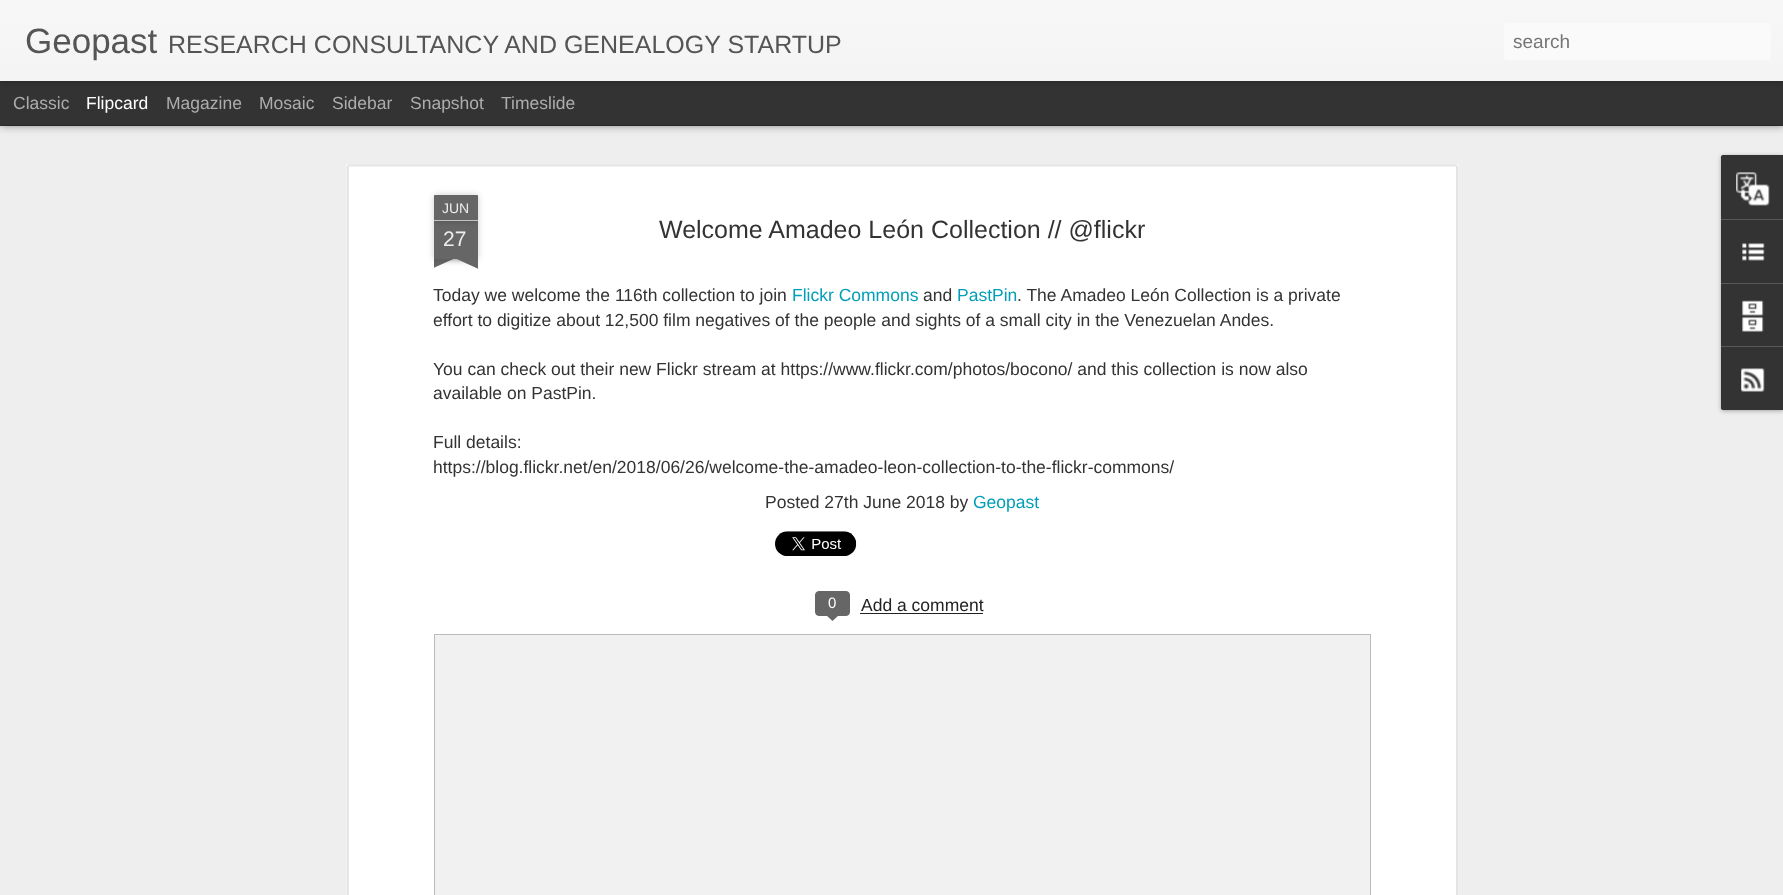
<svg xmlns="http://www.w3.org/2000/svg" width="1783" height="895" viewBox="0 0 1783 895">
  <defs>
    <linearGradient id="g1" gradientUnits="userSpaceOnUse" x1="0" y1="0" x2="0" y2="81"><stop offset="0" stop-color="rgb(247,247,247)"/><stop offset="1" stop-color="rgb(244,244,244)"/></linearGradient>
    <clipPath id="clip1"><rect x="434" y="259" width="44" height="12"/></clipPath>
    <clipPath id="clip2"><rect x="434" y="259" width="44" height="12"/></clipPath>
  </defs>
  <rect width="100%" height="100%" fill="rgb(51,51,51)"/>
  <rect x="0" y="126" width="1783" height="769" fill="rgb(238,238,238)"/>
  <rect x="0" y="81" width="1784" height="44" fill="rgba(0,0,0,0.5)" filter="blur(5px)"/>
  <rect x="0" y="81" width="1783" height="44" fill="rgb(51,51,51)"/>
  <rect x="0" y="0" width="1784" height="81" fill="rgba(0,0,0,0.3)" filter="blur(3px)"/>
  <rect x="0" y="0" width="1783" height="81" fill="url(#g1)"/>
  <text x="25" y="53" font-family="Liberation Sans" font-size="35" fill="rgb(85,85,85)">Geopast</text>
  <text x="168" y="53" font-family="Liberation Sans" font-size="25" fill="rgb(85,85,85)">RESEARCH CONSULTANCY AND GENEALOGY STARTUP</text>
  <rect x="1504" y="23" width="267" height="37" rx="4" fill="rgb(250,250,250)"/>
  <text x="1513" y="48" font-family="Liberation Sans" font-size="19" fill="rgb(117,117,117)">search</text>
  <text x="13" y="109" font-family="Liberation Sans" font-size="17.5" fill="rgb(173,173,173)">Classic</text>
  <text x="86" y="109" font-family="Liberation Sans" font-size="17.5" fill="rgb(255,255,255)">Flipcard</text>
  <g font-family="Liberation Sans" font-size="17.5" fill="rgb(173,173,173)">
    <text x="166" y="109">Magazine</text>
    <text x="259" y="109">Mosaic</text>
    <text x="332" y="109">Sidebar</text>
    <text x="410" y="109">Snapshot</text>
    <text x="501" y="109">Timeslide</text>
  </g>
  <rect x="346" y="164" width="1113" height="731" fill="rgb(255,255,255)"/>
  <image x="346" y="164" width="1113" height="731" href="pic1.png"/>
  <rect x="434" y="221" width="44" height="38" fill="rgba(0,0,0,0.2)" filter="blur(3px)"/>
  <rect x="434" y="221" width="44" height="38" fill="rgb(102,102,102)"/>
  <rect x="434" y="195" width="44" height="26" rx="1" fill="rgba(0,0,0,0.2)" filter="blur(3px)"/>
  <path d="M435 195H477C477.5 195 478 195.5 478 196V221H434V196C434 195.5 434.5 195 435 195Z" fill="rgb(102,102,102)"/>
  <rect x="434" y="220" width="44" height="1" fill="rgb(194,194,194)"/>
  <text x="442" y="213" font-family="Liberation Sans" font-size="14" fill="rgb(238,238,238)">JUN</text>
  <text x="443" y="246" font-family="Liberation Sans" font-size="21" fill="rgb(238,238,238)">27</text>
  <g clip-path="url(#clip1)">
    <rect x="423" y="246" width="62" height="13" fill="rgba(0,0,0,0.2)" filter="blur(3px)"/>
  </g>
  <g clip-path="url(#clip2)">
    <path d="M422 260L479 234L484 245L427 271Z" fill="rgb(102,102,102)"/>
  </g>
  <g clip-path="url(#clip1)">
    <rect x="426" y="246" width="63" height="13" fill="rgba(0,0,0,0.2)" filter="blur(3px)"/>
  </g>
  <g clip-path="url(#clip2)">
    <path d="M431 234L488 260L483 271L426 245Z" fill="rgb(102,102,102)"/>
  </g>
  <text x="659" y="238" font-family="Liberation Sans" font-size="25" fill="rgb(51,51,51)">Welcome Amadeo León Collection // @flickr</text>
  <text x="433" y="301" font-family="Liberation Sans" font-size="17.5" fill="rgb(51,51,51)">Today we welcome the 116th collection to join</text>
  <text x="792" y="301" font-family="Liberation Sans" font-size="17.5" fill="rgb(0,158,184)">Flickr Commons</text>
  <text x="923" y="301" font-family="Liberation Sans" font-size="17.5" fill="rgb(51,51,51)">and</text>
  <text x="957" y="301" font-family="Liberation Sans" font-size="17.5" fill="rgb(0,158,184)">PastPin</text>
  <g font-family="Liberation Sans" font-size="17.5" fill="rgb(51,51,51)">
    <text x="1017" y="301">. The Amadeo León Collection is a private</text>
    <text x="433" y="326">effort to digitize about 12,500 film negatives of the people and sights of a small city in the Venezuelan Andes.</text>
    <text>
      <tspan x="433" y="375">You can check out their new Flickr stream at https://www.flickr.com/photos/bocono/ and this collection is now also</tspan>
      <tspan x="433" y="399">available on PastPin.</tspan>
    </text>
    <text>
      <tspan x="433" y="448">Full details:</tspan>
      <tspan x="433" y="473">https://blog.flickr.net/en/2018/06/26/welcome-the-amadeo-leon-collection-to-the-flickr-commons/</tspan>
    </text>
    <text x="765" y="508">Posted 27th June 2018 by</text>
  </g>
  <text x="973" y="508" font-family="Liberation Sans" font-size="17.5" fill="rgb(0,158,184)">Geopast</text>
  <image x="775" y="531" width="82" height="25" href="pic2.png"/>
  <rect x="815.5" y="591.5" width="34" height="24" rx="3.5" fill="rgb(102,102,102)" stroke="rgb(102,102,102)"/>
  <text x="828" y="608" font-family="Liberation Sans" font-size="15" fill="rgb(255,255,255)">0</text>
  <path d="M826 615H839L832.5 621Z" fill="rgb(102,102,102)"/>
  <text x="861" y="611" font-family="Liberation Sans" font-size="17.5" fill="rgb(34,34,34)">Add a comment</text>
  <rect x="860" y="613" width="123" height="1" fill="rgb(34,34,34)"/>
  <rect x="434.5" y="634.5" width="936" height="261" fill="rgb(241,241,241)" stroke="rgb(187,187,187)"/>
  <rect x="1721" y="156" width="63" height="255" rx="2.5" fill="rgba(0,0,0,0.3)" filter="blur(2px)"/>
  <path d="M1723.5 155H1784V410H1723.5C1722 410 1721 409 1721 407.5V157.5C1721 156 1722 155 1723.5 155Z" fill="rgb(51,51,51)"/>
  <path d="M1723.5 155H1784V219H1721V157.5C1721 156 1722 155 1723.5 155Z" fill="rgb(51,51,51)"/>
  <image x="1736" y="172" width="34" height="34" href="pic3.png"/>
  <rect x="1721" y="219" width="62" height="1" fill="rgb(88,88,88)"/>
  <image x="1742" y="243" width="23" height="18" href="pic4.png"/>
  <rect x="1721" y="283" width="62" height="1" fill="rgb(88,88,88)"/>
  <image x="1742" y="300" width="22" height="32" href="pic5.png"/>
  <path d="M1721 346H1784V410H1723.5C1722 410 1721 409 1721 407.5Z" fill="rgb(51,51,51)"/>
  <rect x="1721" y="346" width="62" height="1" fill="rgb(88,88,88)"/>
  <image x="1741" y="368" width="24" height="24" href="pic6.png"/>
</svg>
